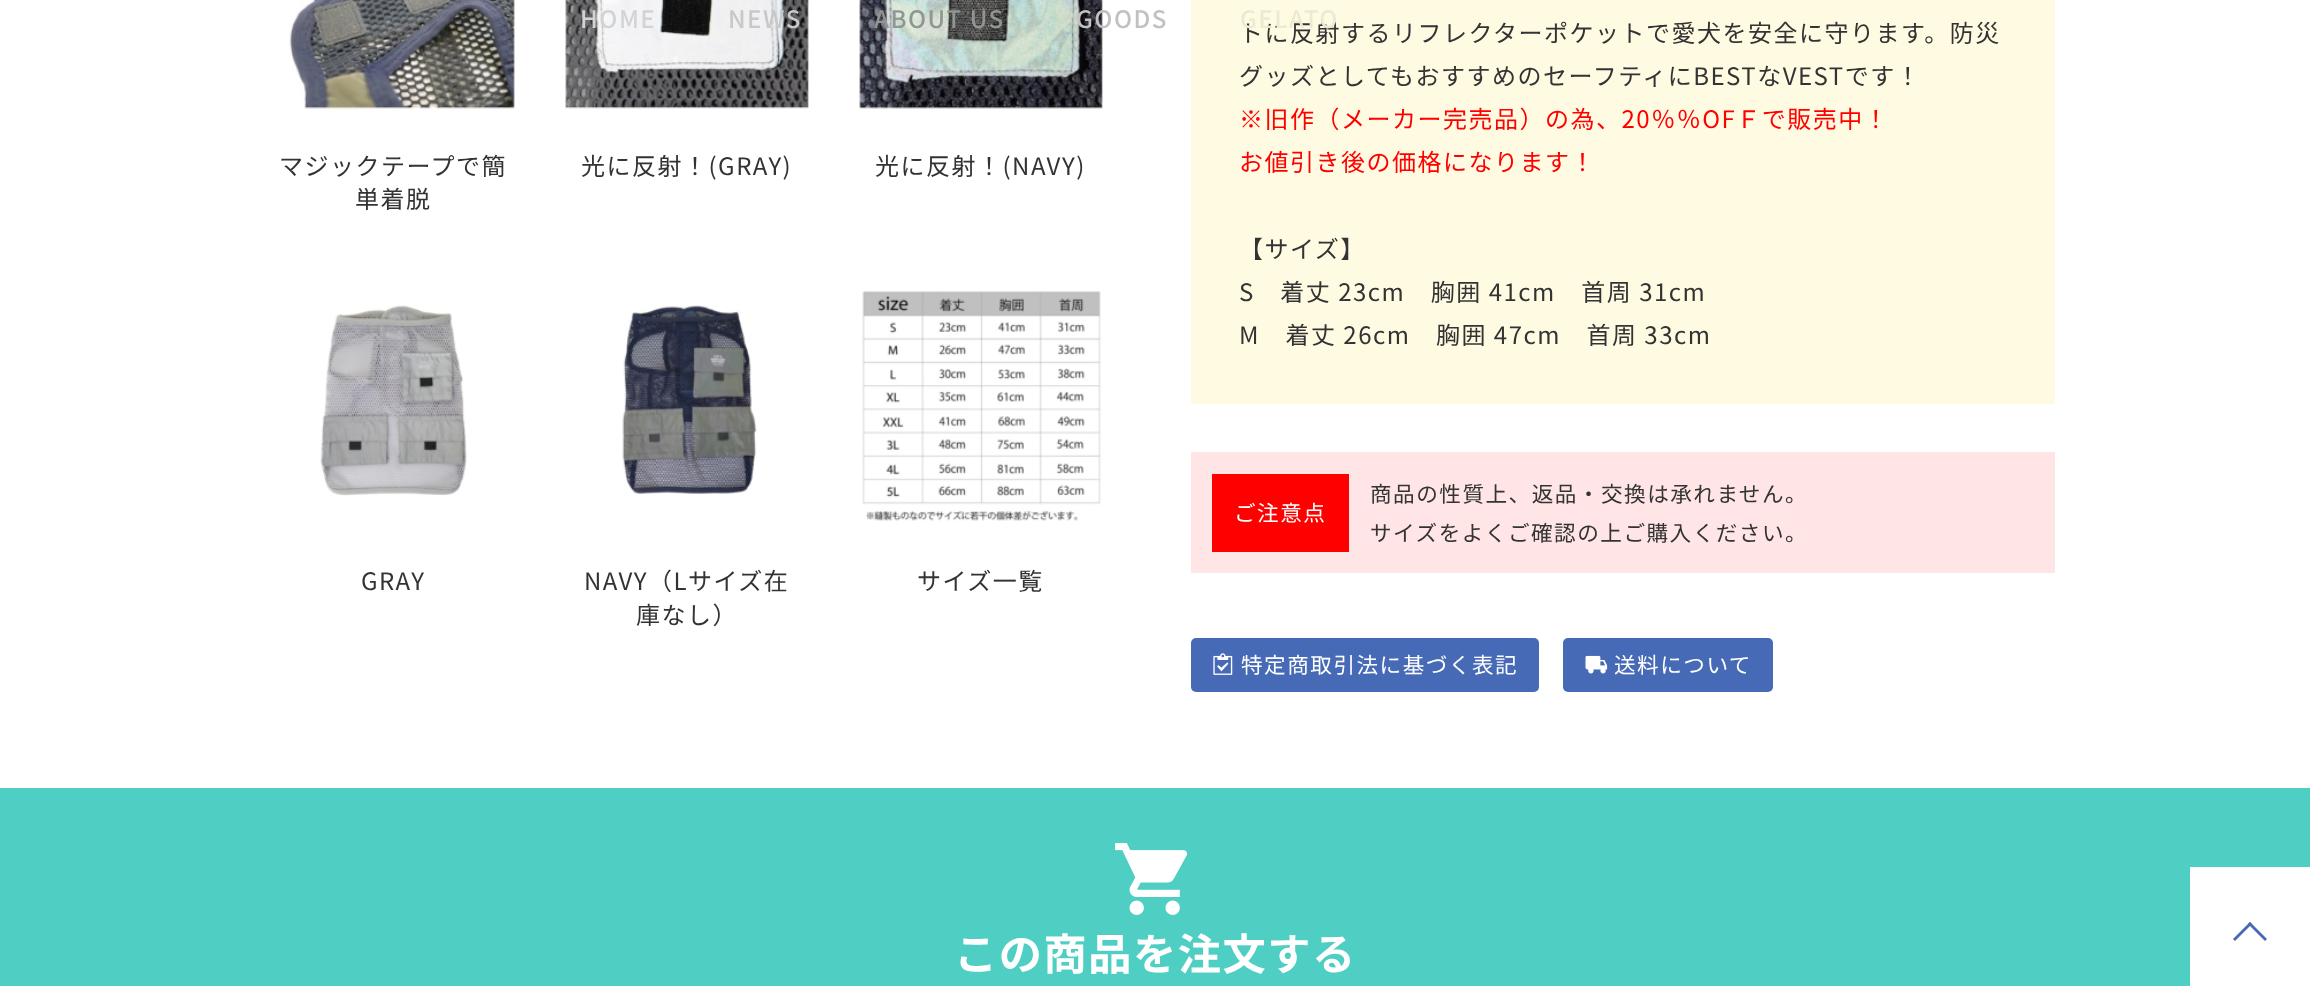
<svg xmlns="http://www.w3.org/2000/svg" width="2310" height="986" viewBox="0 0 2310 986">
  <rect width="100%" height="100%" fill="rgb(255,255,255)"/>
  <image x="565" y="0" width="244" height="109" href="pic2.png"/>
  <text x="580" y="28" font-family="Noto Sans JP" font-size="24" font-weight="500" letter-spacing="1.5" fill="rgb(210,211,212)">HOME</text>
  <text x="728" y="28" font-family="Noto Sans JP" font-size="24" font-weight="500" letter-spacing="1.5" fill="rgb(199,200,201)">NEWS</text>
  <image x="859" y="0" width="244" height="109" href="pic3.png"/>
  <text x="874" y="28" font-family="Noto Sans JP" font-size="24" font-weight="500" letter-spacing="1.5" fill="rgb(144,150,145)">ABOUT US</text>
  <text x="1076" y="28" font-family="Noto Sans JP" font-size="24" font-weight="500" letter-spacing="1.5" fill="rgb(193,193,195)">GOODS</text>
  <rect x="1191" y="0" width="864" height="404" fill="rgb(255,251,226)"/>
  <text x="1239" y="42" font-family="Noto Sans JP" font-size="24" letter-spacing="1.5" fill="rgb(51,51,51)">トに反射するリフレクターポケットで愛犬を安全に守ります。防災</text>
  <text x="1240" y="28" font-family="Noto Sans JP" font-size="24" font-weight="500" letter-spacing="1.5" fill="rgb(237,234,211)">GELATO</text>
  <image x="289" y="0" width="226" height="110" href="pic1.png"/>
  <g font-family="Noto Sans JP" font-size="24" letter-spacing="1.5" fill="rgb(51,51,51)">
    <text x="279" y="175">マジックテープで簡</text>
    <text x="355" y="208">単着脱</text>
    <text x="581" y="175">光に反射！(GRAY)</text>
    <text x="875" y="175">光に反射！(NAVY)</text>
  </g>
  <image x="320" y="305" width="147" height="191" href="pic4.png"/>
  <text x="361" y="590" font-family="Noto Sans JP" font-size="24" letter-spacing="1.5" fill="rgb(51,51,51)">GRAY</text>
  <image x="622" y="305" width="135" height="189" href="pic5.png"/>
  <g font-family="Noto Sans JP" font-size="24" letter-spacing="1.5" fill="rgb(51,51,51)">
    <text x="584" y="590">NAVY（Lサイズ在</text>
    <text x="636" y="624">庫なし）</text>
  </g>
  <image x="862" y="291" width="239" height="230" href="pic6.png"/>
  <g font-family="Noto Sans JP" font-size="24" letter-spacing="1.5" fill="rgb(51,51,51)">
    <text x="917" y="590">サイズ一覧</text>
    <text x="1239" y="85">グッズとしてもおすすめのセーフティにBESTなVESTです！</text>
  </g>
  <g font-family="Noto Sans JP" font-size="24" letter-spacing="1.5" fill="rgb(255,0,0)">
    <text>
      <tspan x="1239" y="128">※旧作（メーカー完売品）の為、20％％OFＦで販売中！</tspan>
      <tspan x="1239" y="171">お値引き後の価格になります！</tspan>
    </text>
  </g>
  <g font-family="Noto Sans JP" font-size="24" letter-spacing="1.5" fill="rgb(51,51,51)">
    <text>
      <tspan x="1239" y="258">【サイズ】</tspan>
      <tspan x="1239" y="301">S　着丈 23cm　胸囲 41cm　首周 31cm</tspan>
      <tspan x="1239" y="344">M　着丈 26cm　胸囲 47cm　首周 33cm</tspan>
    </text>
  </g>
  <rect x="1191" y="452" width="864" height="121" fill="rgb(255,229,229)"/>
  <rect x="1212" y="474" width="137" height="78" fill="rgb(255,0,0)"/>
  <text x="1234" y="521" font-family="Noto Sans JP" font-size="21.6" letter-spacing="1.5" fill="rgb(255,255,255)">ご注意点</text>
  <g font-family="Noto Sans JP" font-size="21.6" letter-spacing="1.5" fill="rgb(51,51,51)">
    <text>
      <tspan x="1370" y="502">商品の性質上、返品・交換は承れません。</tspan>
      <tspan x="1370" y="541">サイズをよくご確認の上ご購入ください。</tspan>
    </text>
  </g>
  <rect x="1191" y="638" width="348" height="54" rx="5" fill="rgb(70,106,182)"/>
  <image x="1213" y="653" width="20" height="22" href="pic7.png"/>
  <text x="1241" y="673" font-family="Noto Sans JP" font-size="21.6" letter-spacing="1.5" fill="rgb(255,255,255)">特定商取引法に基づく表記</text>
  <rect x="1563" y="638" width="210" height="54" rx="5" fill="rgb(70,106,182)"/>
  <image x="1585" y="655" width="23" height="19" href="pic8.png"/>
  <text x="1614" y="673" font-family="Noto Sans JP" font-size="21.6" letter-spacing="1.5" fill="rgb(255,255,255)">送料について</text>
  <rect x="0" y="788" width="2310" height="198" fill="rgb(79,206,196)"/>
  <image x="1115" y="843" width="73" height="72" href="pic9.png"/>
  <text x="954" y="970" font-family="Noto Sans JP" font-size="43.25" font-weight="bold" letter-spacing="1.5" fill="rgb(255,255,255)">この商品を注文する</text>
  <rect x="2190" y="867" width="120" height="119" fill="rgb(255,255,255)"/>
  <path d="M2250 922L2267 939L2265 941L2248 924Z" fill="rgb(70,106,182)"/>
  <path d="M2250 922L2252 924L2235 941L2233 939Z" fill="rgb(70,106,182)"/>
</svg>
